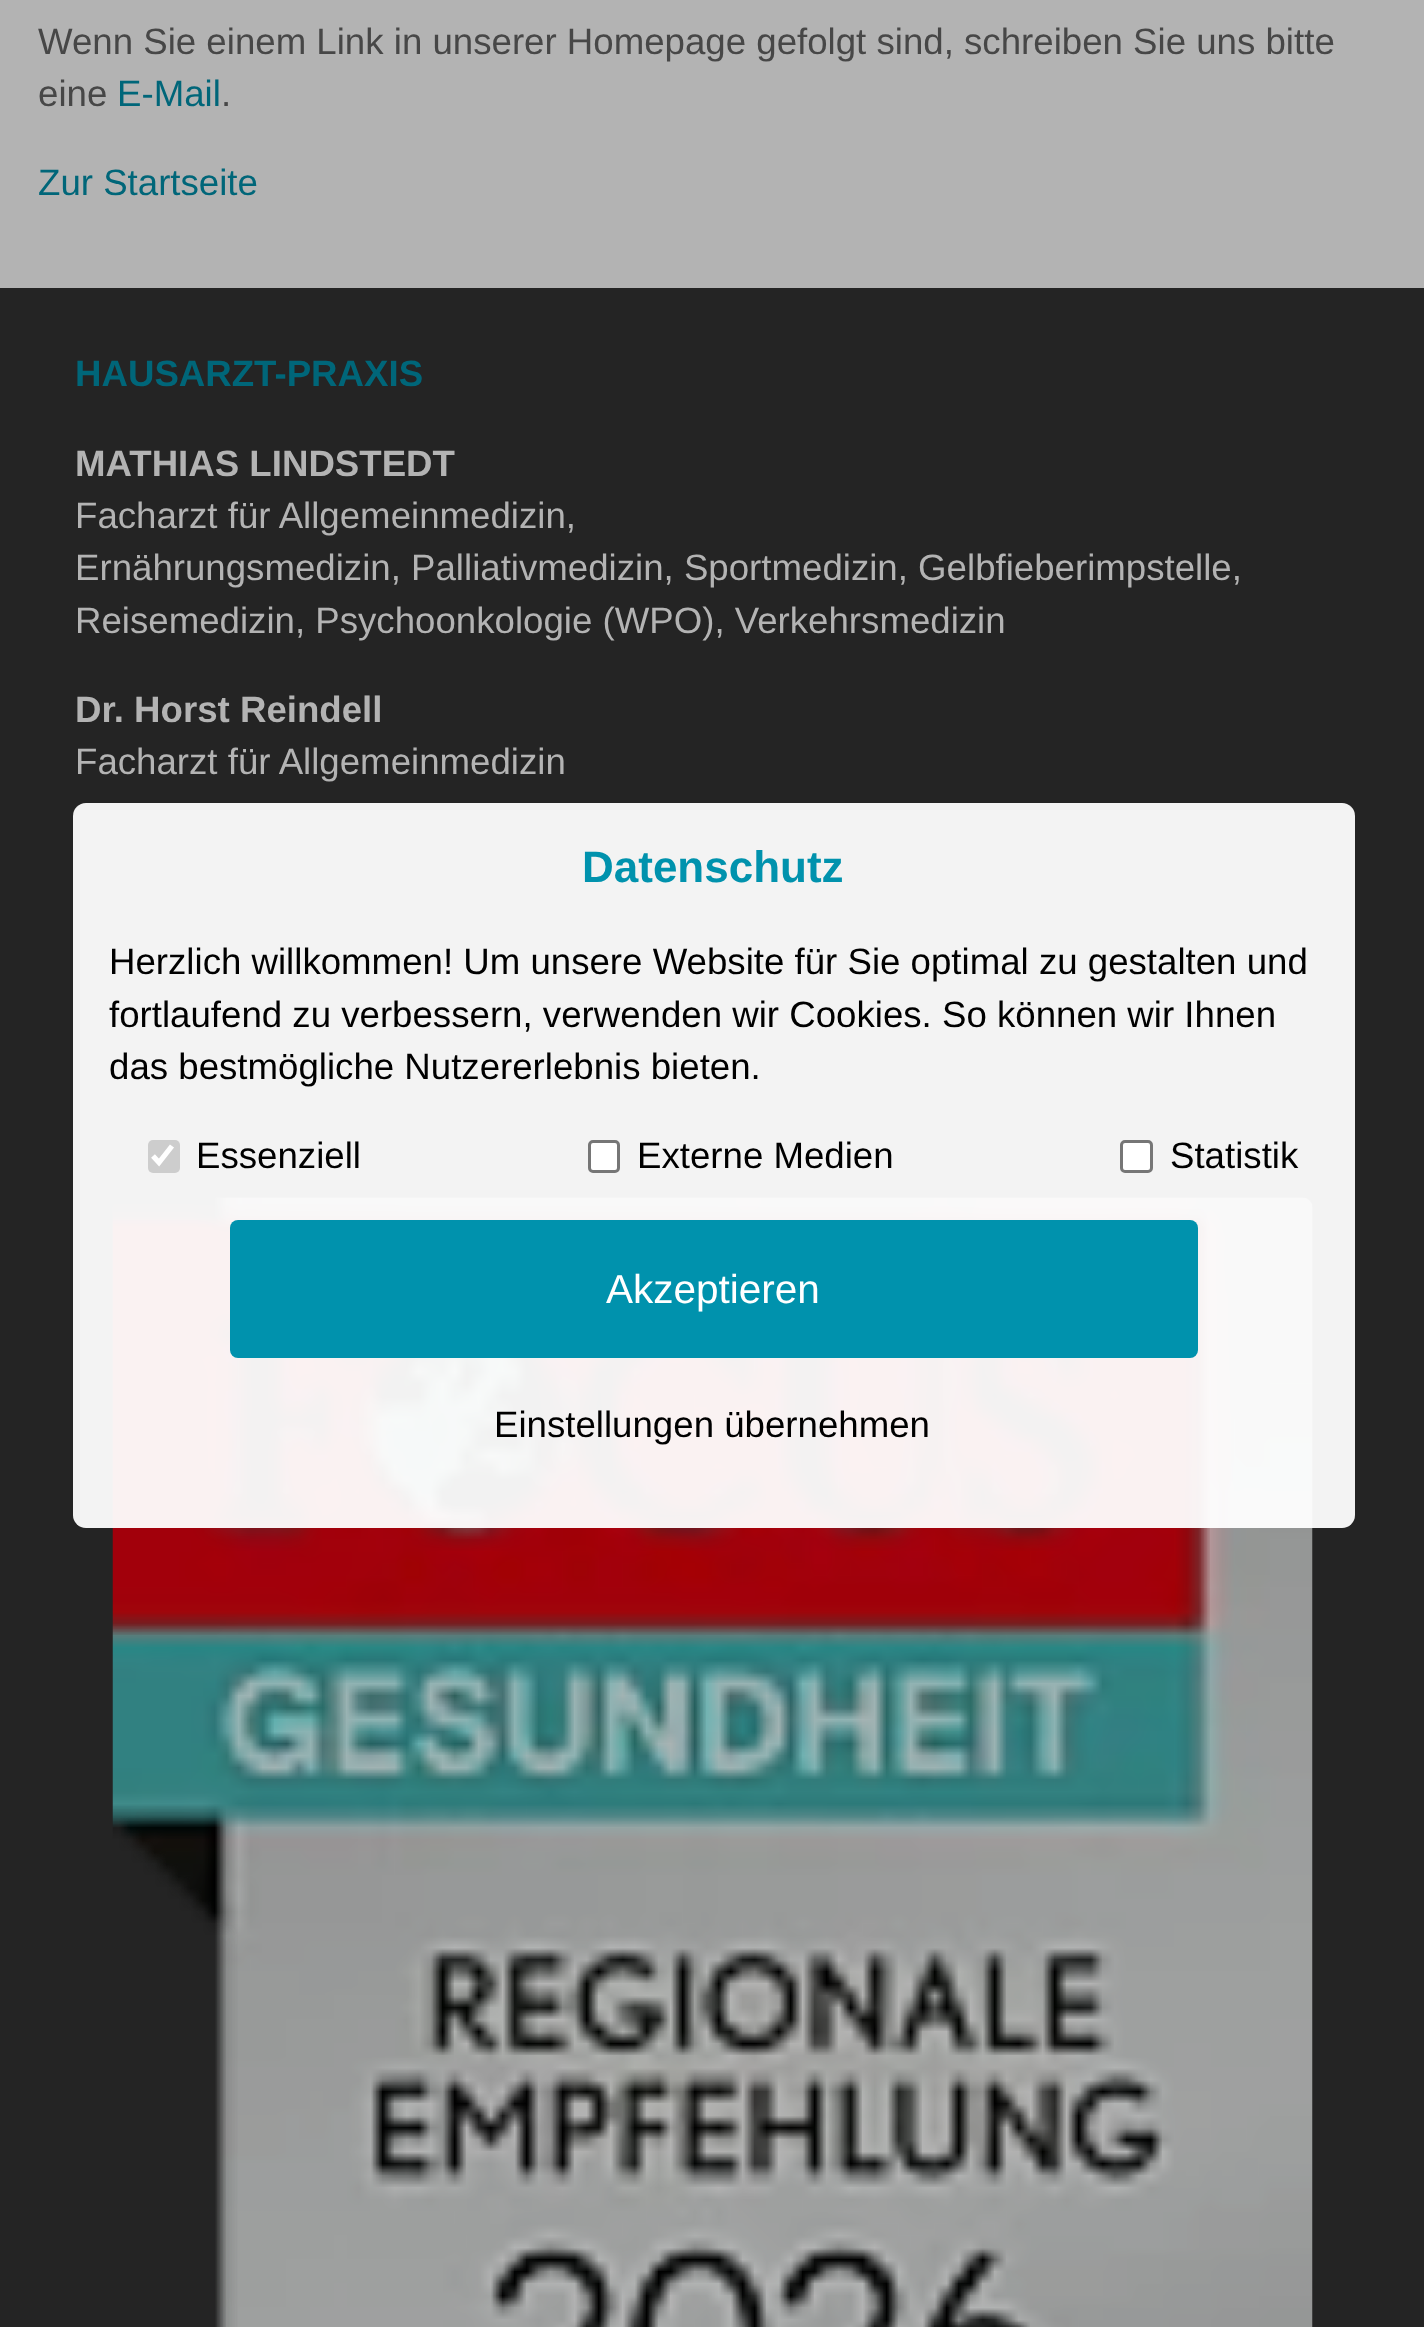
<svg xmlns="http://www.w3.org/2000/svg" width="1424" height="2327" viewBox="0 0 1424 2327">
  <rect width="100%" height="100%" fill="rgb(179,179,179)"/>
  <g font-family="Liberation Sans" font-size="36.65" fill="rgb(71,71,71)">
    <text>
      <tspan x="38" y="54">Wenn Sie einem Link in unserer Homepage gefolgt sind, schreiben Sie uns bitte</tspan>
      <tspan x="38" y="106">eine</tspan>
    </text>
  </g>
  <text x="117" y="106" font-family="Liberation Sans" font-size="36.65" fill="rgb(0,102,121)">E-Mail</text>
  <text x="221" y="106" font-family="Liberation Sans" font-size="36.65" fill="rgb(71,71,71)">.</text>
  <text x="38" y="195" font-family="Liberation Sans" font-size="36.65" fill="rgb(0,102,121)">Zur Startseite</text>
  <rect x="0" y="288" width="1424" height="2039" fill="rgb(36,36,36)"/>
  <text x="75" y="386" font-family="Liberation Sans" font-size="36.65" font-weight="bold" fill="rgb(0,102,121)">HAUSARZT-PRAXIS</text>
  <text x="75" y="476" font-family="Liberation Sans" font-size="36.65" font-weight="bold" fill="rgb(179,179,179)">MATHIAS LINDSTEDT</text>
  <g font-family="Liberation Sans" font-size="36.65" fill="rgb(179,179,179)">
    <text>
      <tspan x="75" y="528">Facharzt für Allgemeinmedizin,</tspan>
      <tspan x="75" y="580">Ernährungsmedizin, Palliativmedizin, Sportmedizin, Gelbfieberimpstelle,</tspan>
      <tspan x="75" y="633">Reisemedizin, Psychoonkologie (WPO), Verkehrsmedizin</tspan>
    </text>
  </g>
  <text x="75" y="722" font-family="Liberation Sans" font-size="36.65" font-weight="bold" fill="rgb(179,179,179)">Dr. Horst Reindell</text>
  <text x="75" y="774" font-family="Liberation Sans" font-size="36.65" fill="rgb(179,179,179)">Facharzt für Allgemeinmedizin</text>
  <image x="112" y="1197" width="1201" height="1130" href="pic1.png"/>
  <rect x="73" y="803" width="1282" height="725" rx="13" fill="rgba(255,255,255,0.95)"/>
  <text x="582" y="882" font-family="Liberation Sans" font-size="44" font-weight="bold" fill="rgb(0,146,173)">Datenschutz</text>
  <g font-family="Liberation Sans" font-size="36.65" fill="rgb(0,0,0)">
    <text>
      <tspan x="109" y="974">Herzlich willkommen! Um unsere Website für Sie optimal zu gestalten und</tspan>
      <tspan x="109" y="1027">fortlaufend zu verbessern, verwenden wir Cookies. So können wir Ihnen</tspan>
      <tspan x="109" y="1079">das bestmögliche Nutzererlebnis bieten.</tspan>
    </text>
  </g>
  <rect x="148" y="1140" width="32" height="33" rx="5" fill="rgba(118,118,118,0.3)"/>
  <path d="M153 1156L159 1162.5L172 1146" fill="none" stroke="rgb(255,255,255)" stroke-width="5.2"/>
  <text x="196" y="1168" font-family="Liberation Sans" font-size="36.65" fill="rgb(0,0,0)">Essenziell</text>
  <rect x="589.5" y="1141.5" width="29" height="30" rx="3.5" fill="rgb(255,255,255)" stroke="rgb(118,118,118)" stroke-width="3"/>
  <text x="637" y="1168" font-family="Liberation Sans" font-size="36.65" fill="rgb(0,0,0)">Externe Medien</text>
  <rect x="1121.5" y="1141.5" width="30" height="30" rx="3.5" fill="rgb(255,255,255)" stroke="rgb(118,118,118)" stroke-width="3"/>
  <text x="1170" y="1168" font-family="Liberation Sans" font-size="36.65" fill="rgb(0,0,0)">Statistik</text>
  <rect x="230" y="1220" width="968" height="138" rx="8" fill="rgb(0,146,173)"/>
  <text x="606" y="1303" font-family="Liberation Sans" font-size="40.5" fill="rgb(255,255,255)">Akzeptieren</text>
  <text x="494" y="1437" font-family="Liberation Sans" font-size="36.65" fill="rgb(0,0,0)">Einstellungen übernehmen</text>
</svg>
